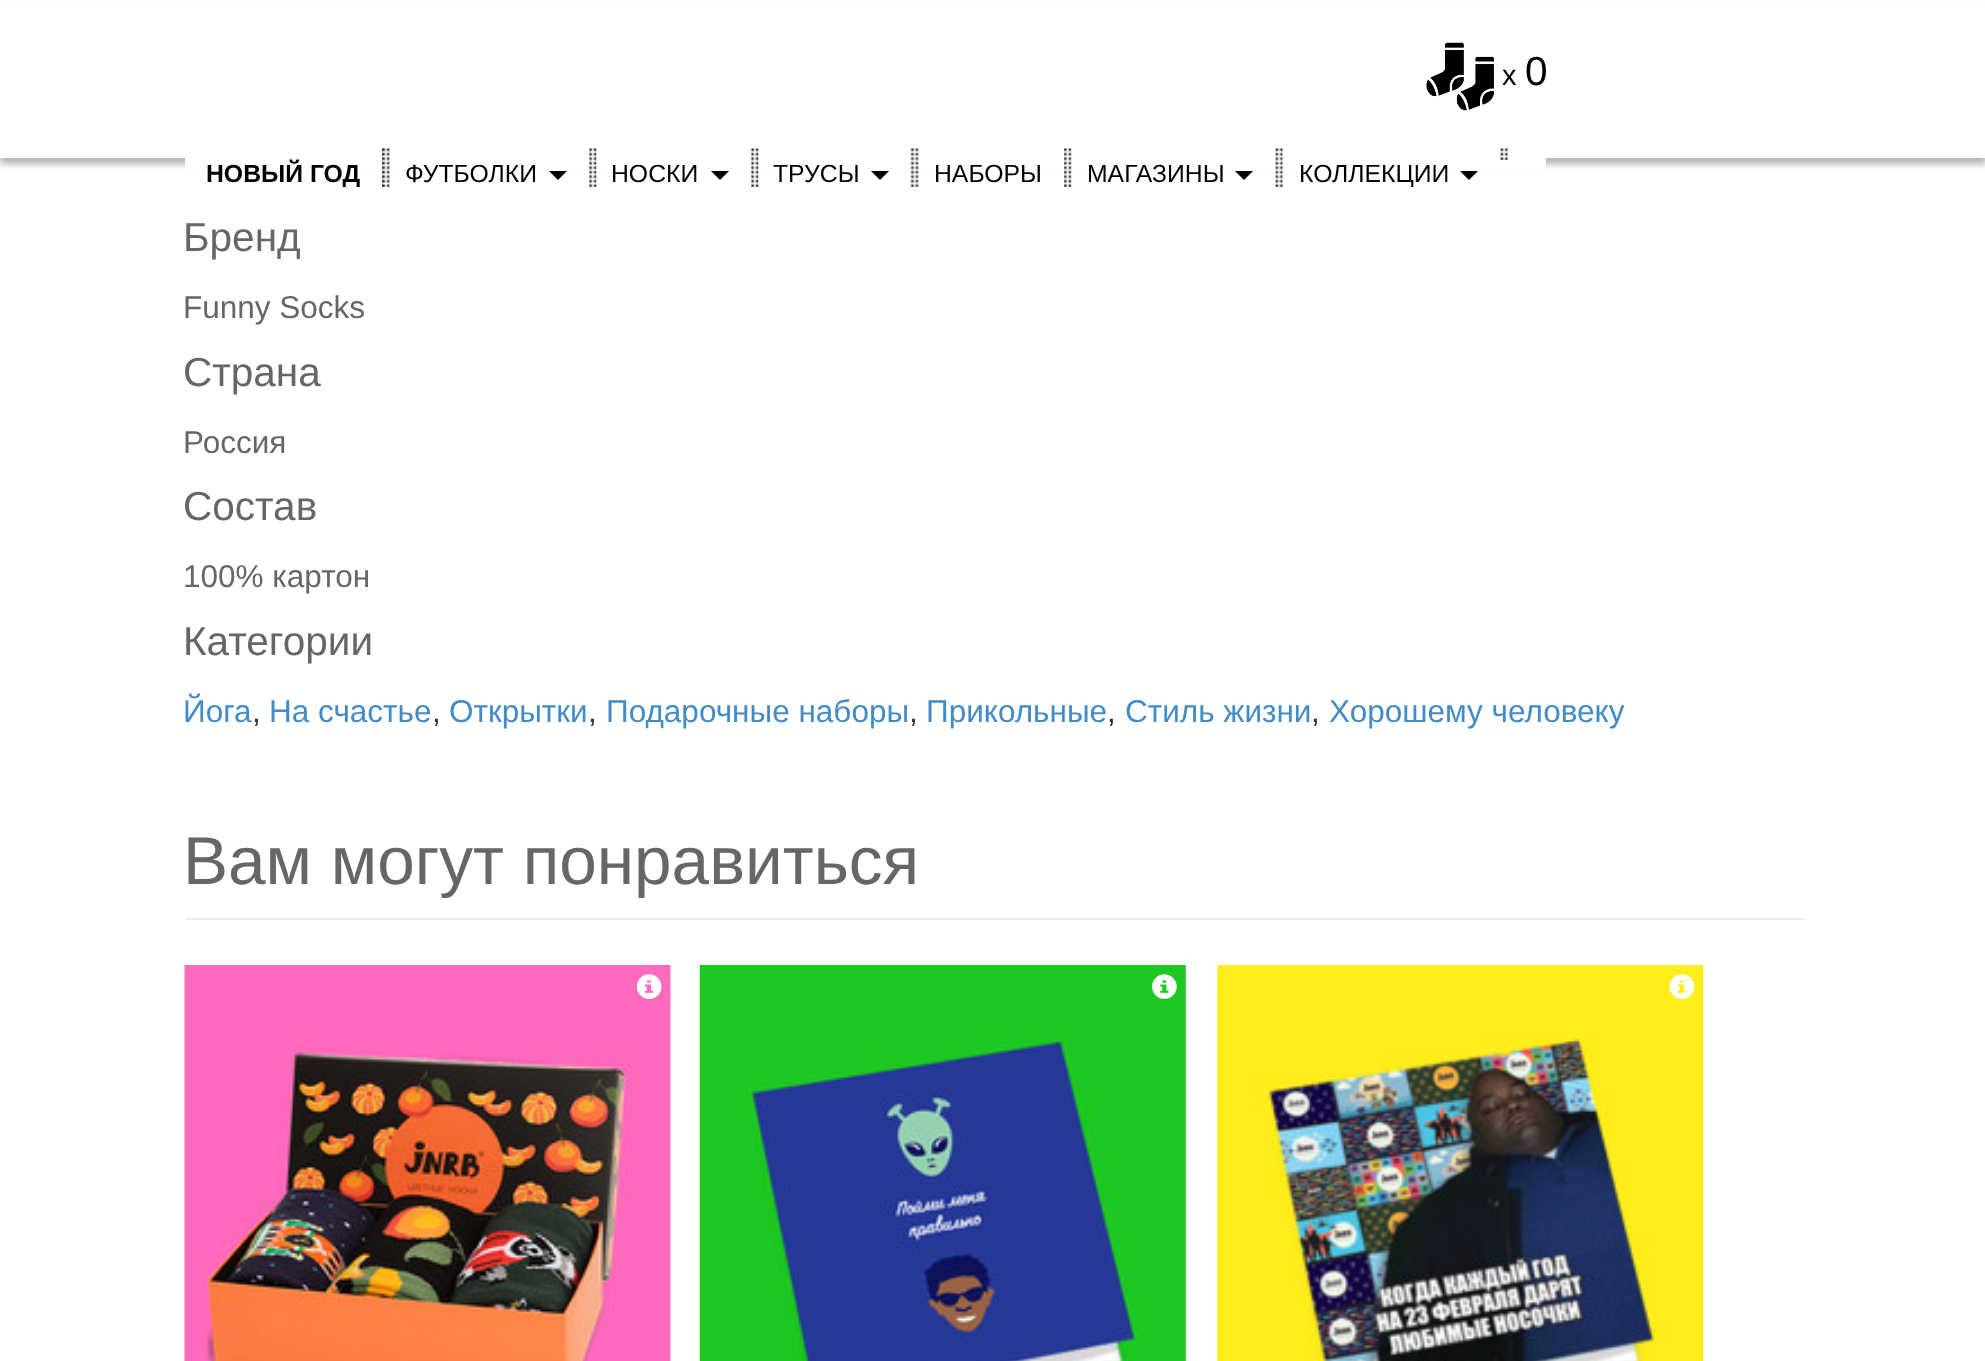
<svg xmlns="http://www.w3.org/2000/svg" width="1985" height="1361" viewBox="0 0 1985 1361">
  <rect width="100%" height="100%" fill="rgb(255,255,255)"/>
  <rect x="0" y="7" width="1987" height="157" fill="rgba(0,0,0,0.3)" filter="blur(3.5px)"/>
  <rect x="0" y="1" width="1985" height="157" fill="rgb(255,255,255)"/>
  <image x="1426" y="42" width="68" height="69" href="pic1.png"/>
  <text x="1502" y="85" font-family="Liberation Sans" font-size="29" fill="rgb(0,0,0)">x</text>
  <text x="1525" y="85" font-family="Liberation Sans" font-size="40.5" fill="rgb(0,0,0)">0</text>
  <rect x="185" y="158" width="1361" height="12" fill="rgb(255,255,255)"/>
  <image x="1500" y="147" width="8" height="13" href="pic2.png"/>
  <text x="206" y="182" font-family="Liberation Sans" font-size="24.75" font-weight="bold" fill="rgb(0,0,0)">НОВЫЙ ГОД</text>
  <image x="382" y="147" width="8" height="40" href="pic3.png"/>
  <text x="405" y="182" font-family="Liberation Sans" font-size="24.75" fill="rgb(0,0,0)">ФУТБОЛКИ</text>
  <path d="M549 171H567L558 180Z" fill="rgb(0,0,0)"/>
  <image x="589" y="147" width="8" height="40" href="pic4.png"/>
  <text x="611" y="182" font-family="Liberation Sans" font-size="24.75" fill="rgb(0,0,0)">НОСКИ</text>
  <path d="M711 171H729L720 180Z" fill="rgb(0,0,0)"/>
  <image x="751" y="147" width="8" height="40" href="pic4.png"/>
  <text x="773" y="182" font-family="Liberation Sans" font-size="24.75" fill="rgb(0,0,0)">ТРУСЫ</text>
  <path d="M871 171H889L880 180Z" fill="rgb(0,0,0)"/>
  <image x="910" y="147" width="9" height="40" href="pic5.png"/>
  <text x="934" y="182" font-family="Liberation Sans" font-size="24.75" fill="rgb(0,0,0)">НАБОРЫ</text>
  <image x="1064" y="147" width="8" height="40" href="pic6.png"/>
  <text x="1087" y="182" font-family="Liberation Sans" font-size="24.75" fill="rgb(0,0,0)">МАГАЗИНЫ</text>
  <path d="M1235 171H1253L1244 180Z" fill="rgb(0,0,0)"/>
  <image x="1275" y="147" width="9" height="40" href="pic7.png"/>
  <text x="1299" y="182" font-family="Liberation Sans" font-size="24.75" fill="rgb(0,0,0)">КОЛЛЕКЦИИ</text>
  <path d="M1460 171H1478L1469 180Z" fill="rgb(0,0,0)"/>
  <text x="183" y="251" font-family="Liberation Sans" font-size="40.5" fill="rgb(102,102,102)">Бренд</text>
  <text x="183" y="318" font-family="Liberation Sans" font-size="31.5" fill="rgb(102,102,102)">Funny Socks</text>
  <text x="183" y="386" font-family="Liberation Sans" font-size="40.5" fill="rgb(102,102,102)">Страна</text>
  <text x="183" y="453" font-family="Liberation Sans" font-size="31.5" fill="rgb(102,102,102)">Россия</text>
  <text x="183" y="520" font-family="Liberation Sans" font-size="40.5" fill="rgb(102,102,102)">Состав</text>
  <text x="183" y="587" font-family="Liberation Sans" font-size="31.5" fill="rgb(102,102,102)">100% картон</text>
  <text x="183" y="655" font-family="Liberation Sans" font-size="40.5" fill="rgb(102,102,102)">Категории</text>
  <text x="183" y="722" font-family="Liberation Sans" font-size="31.5" fill="rgb(66,139,202)">Йога</text>
  <text x="252" y="722" font-family="Liberation Sans" font-size="31.5" fill="rgb(51,51,51)">,</text>
  <text x="269" y="722" font-family="Liberation Sans" font-size="31.5" fill="rgb(66,139,202)">На счастье</text>
  <text x="432" y="722" font-family="Liberation Sans" font-size="31.5" fill="rgb(51,51,51)">,</text>
  <text x="449" y="722" font-family="Liberation Sans" font-size="31.5" fill="rgb(66,139,202)">Открытки</text>
  <text x="588" y="722" font-family="Liberation Sans" font-size="31.5" fill="rgb(51,51,51)">,</text>
  <text x="606" y="722" font-family="Liberation Sans" font-size="31.5" fill="rgb(66,139,202)">Подарочные наборы</text>
  <text x="909" y="722" font-family="Liberation Sans" font-size="31.5" fill="rgb(51,51,51)">,</text>
  <text x="926" y="722" font-family="Liberation Sans" font-size="31.5" fill="rgb(66,139,202)">Прикольные</text>
  <text x="1107" y="722" font-family="Liberation Sans" font-size="31.5" fill="rgb(51,51,51)">,</text>
  <text x="1125" y="722" font-family="Liberation Sans" font-size="31.5" fill="rgb(66,139,202)">Стиль жизни</text>
  <text x="1311" y="722" font-family="Liberation Sans" font-size="31.5" fill="rgb(51,51,51)">,</text>
  <text x="1329" y="722" font-family="Liberation Sans" font-size="31.5" fill="rgb(66,139,202)">Хорошему человеку</text>
  <rect x="185" y="918" width="1620" height="2" fill="rgb(238,238,238)"/>
  <text x="183" y="884" font-family="Liberation Sans" font-size="67.5" fill="rgb(102,102,102)">Вам могут понравиться</text>
  <image x="184" y="965" width="487" height="396" href="pic8.png"/>
  <image x="636" y="974" width="26" height="25" href="pic9.png"/>
  <image x="699" y="965" width="487" height="396" href="pic10.png"/>
  <image x="1152" y="974" width="25" height="25" href="pic11.png"/>
  <image x="1217" y="965" width="487" height="396" href="pic12.png"/>
  <image x="1669" y="974" width="26" height="25" href="pic13.png"/>
</svg>
